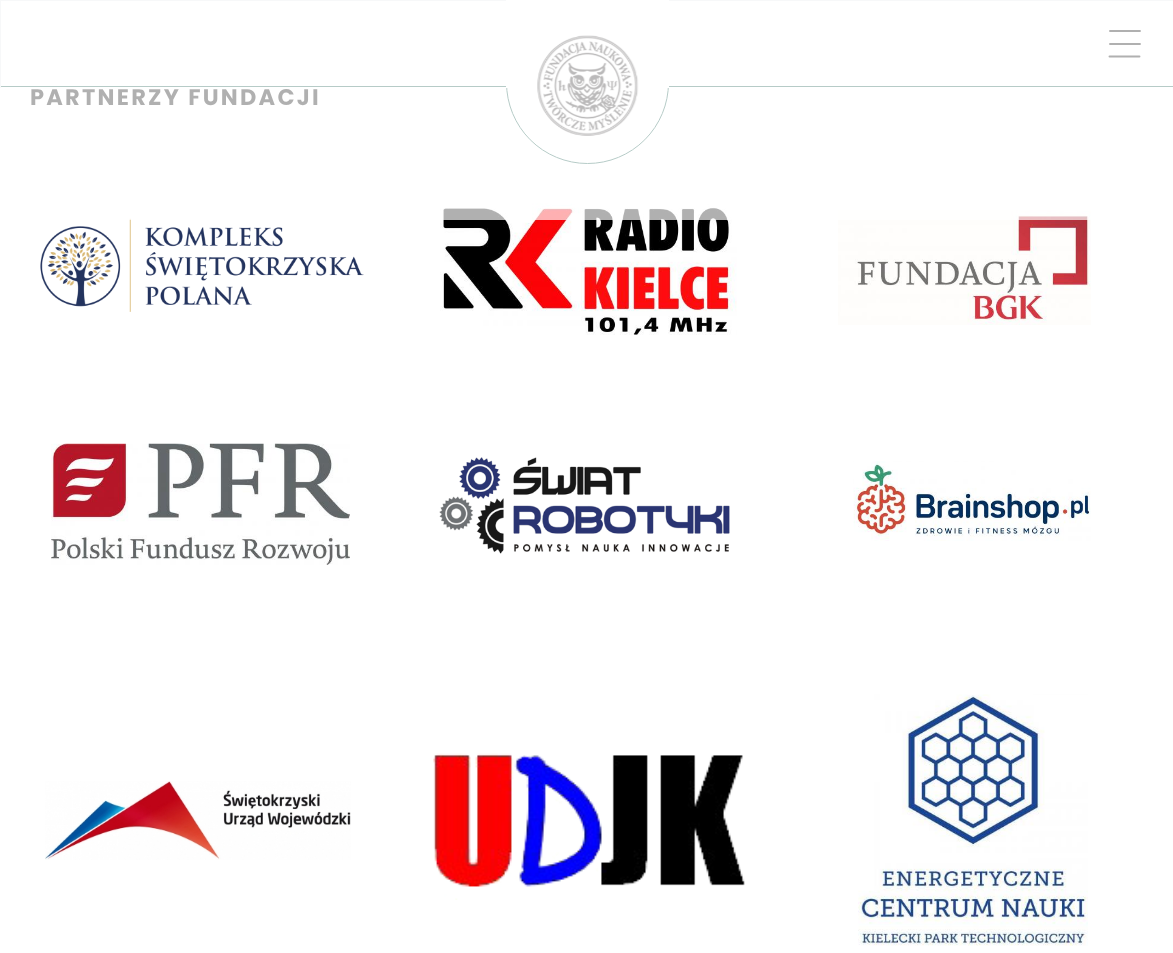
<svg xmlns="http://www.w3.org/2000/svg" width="1173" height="953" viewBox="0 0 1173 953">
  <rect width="100%" height="100%" fill="rgb(255,255,255)"/>
  <rect x="0" y="0" width="1173" height="1" fill="rgb(229,231,235)"/>
  <rect x="0" y="86" width="1173" height="1" fill="rgb(21,89,76)"/>
  <rect x="0" y="0" width="1" height="88" fill="rgb(229,231,235)"/>
  <rect x="506.5" y="-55.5" width="162" height="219" rx="81" fill="rgb(255,255,255)" stroke="rgb(21,89,76)"/>
  <rect x="506" y="0" width="163" height="88" fill="rgb(255,255,255)"/>
  <image x="537" y="35" width="102" height="101" href="pic1.png"/>
  <path d="M1110 31H1140M1140 44H1110M1139.5 56.5H1109.5" fill="none" stroke="rgb(0,0,0)" stroke-width="1.9" stroke-linecap="round"/>
  <text x="30" y="105" font-family="Poppins" font-size="22.5" font-weight="bold" letter-spacing="2.25" fill="rgb(0,0,0)">PARTNERZY FUNDACJI</text>
  <image x="40" y="218" width="324" height="94" href="pic2.png"/>
  <image x="440" y="203" width="297" height="132" href="pic3.png"/>
  <image x="838" y="210" width="253" height="115" href="pic4.png"/>
  <rect x="0" y="0" width="1173" height="220" fill="rgba(255,255,255,0.69)"/>
  <image x="51" y="443" width="299" height="122" href="pic5.png"/>
  <image x="439" y="457" width="291" height="97" href="pic6.png"/>
  <image x="853" y="461" width="238" height="80" href="pic7.png"/>
  <image x="45" y="781" width="306" height="79" href="pic8.png"/>
  <image x="433" y="753" width="312" height="147" href="pic9.png"/>
  <image x="858" y="694" width="230" height="252" href="pic10.png"/>
</svg>
